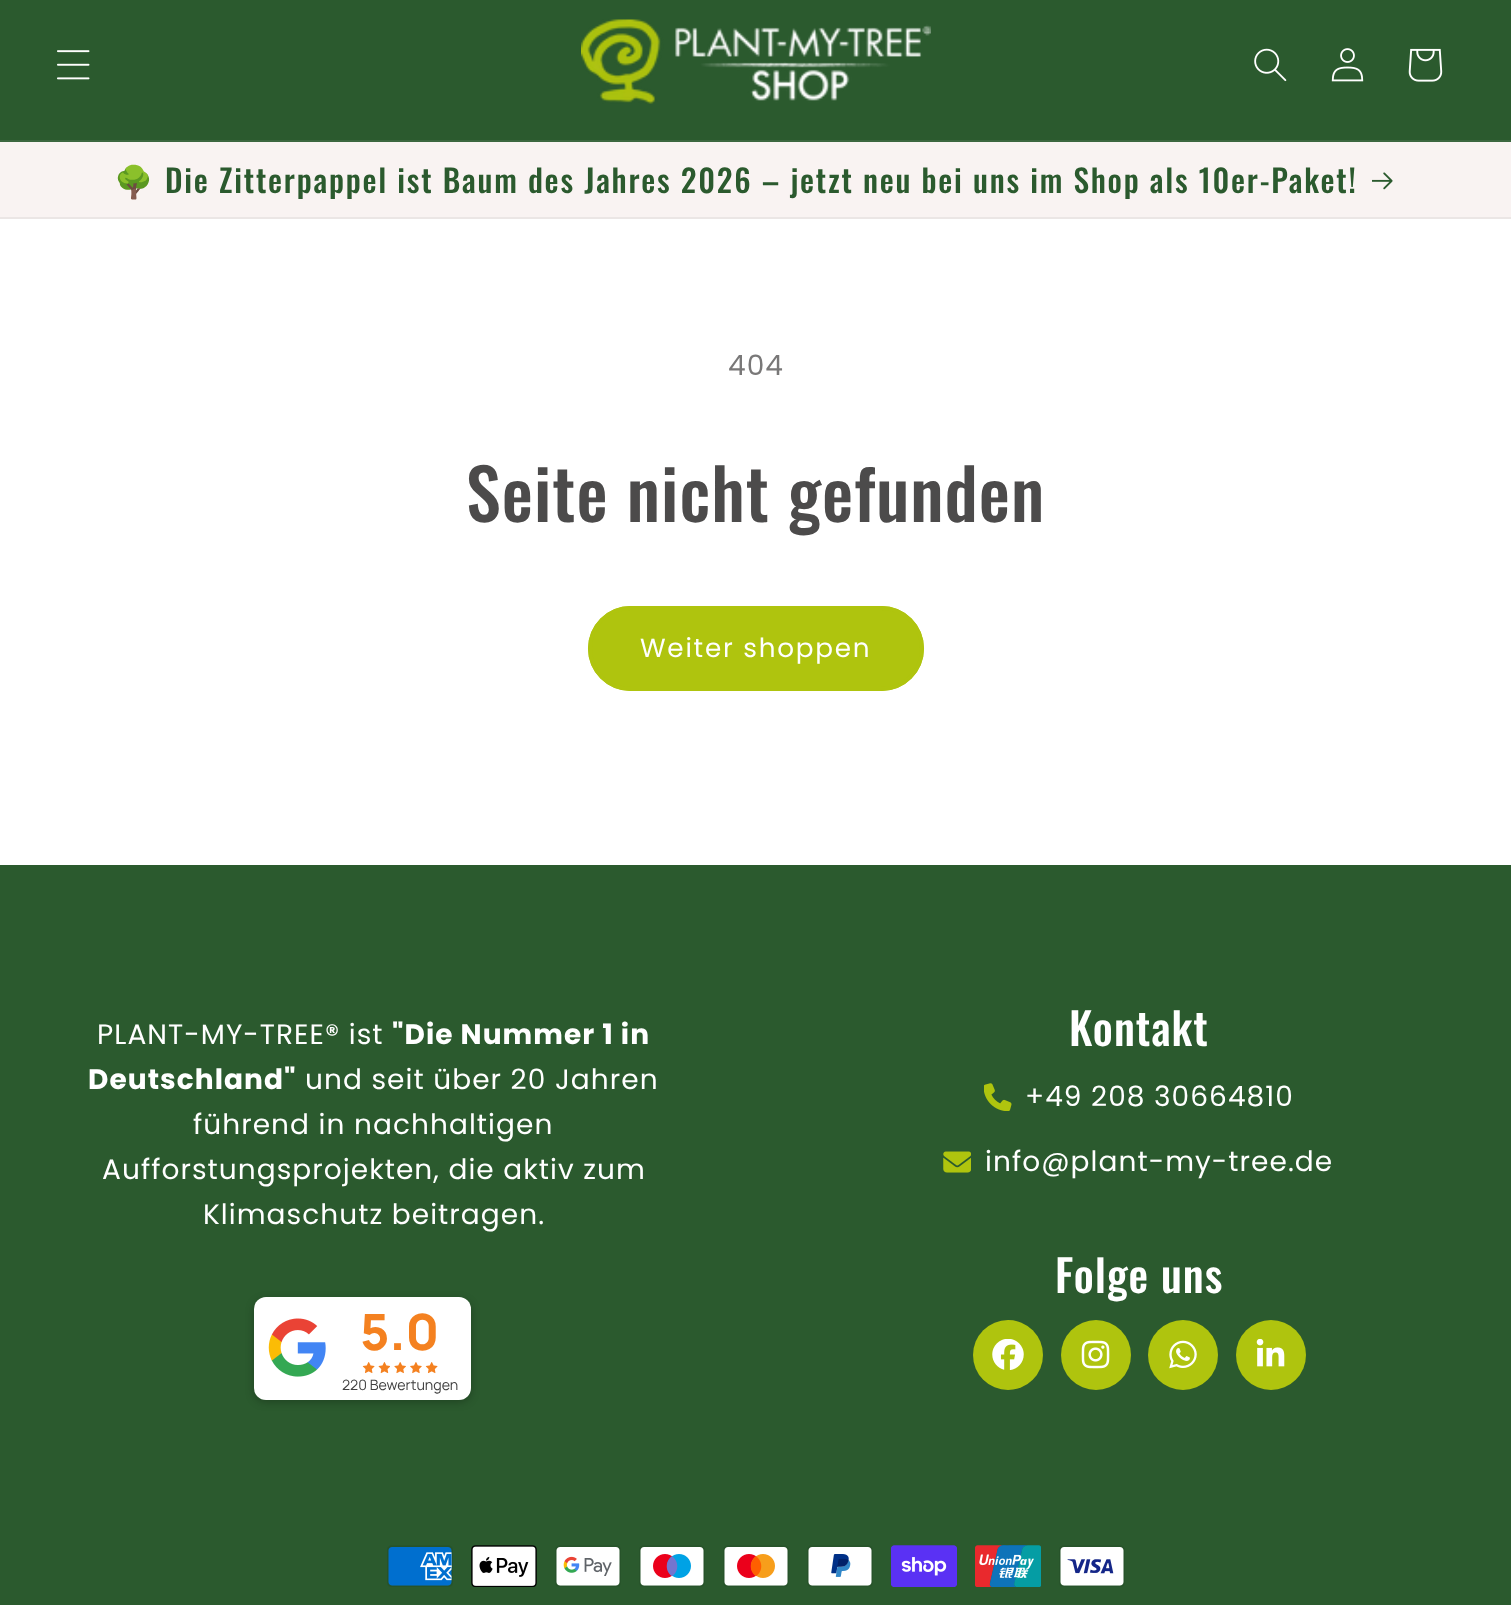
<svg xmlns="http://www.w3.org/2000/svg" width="1511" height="1605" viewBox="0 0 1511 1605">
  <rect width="100%" height="100%" fill="rgb(255,255,255)"/>
  <rect x="0" y="0" width="1511" height="140" fill="rgb(43,90,46)"/>
  <rect x="0" y="140" width="1511" height="2" fill="rgb(60,103,63)"/>
  <image x="57" y="50" width="33" height="30" href="pic1.png"/>
  <image x="581" y="19" width="350" height="85" href="pic2.png"/>
  <image x="1254" y="48" width="33" height="34" href="pic3.png"/>
  <image x="1331" y="48" width="33" height="34" href="pic4.png"/>
  <image x="1408" y="48" width="35" height="34" href="pic5.png"/>
  <rect x="0" y="142" width="1511" height="75" fill="rgb(249,243,242)"/>
  <rect x="0" y="217" width="1511" height="2" fill="rgb(235,230,229)"/>
  <text x="114" y="193" font-family="Noto Color Emoji" font-size="31.5" letter-spacing="1.75" fill="rgb(43,90,46)">🌳</text>
  <text x="165" y="193" font-family="Oswald" font-size="31.5" font-weight="500" letter-spacing="1.75" fill="rgb(43,90,46)">Die Zitterpappel ist Baum des Jahres 2026 – jetzt neu bei uns im Shop als 10er-Paket!</text>
  <image x="1372" y="172" width="21" height="18" href="pic6.png"/>
  <text x="728" y="375" font-family="Poppins" font-size="28" letter-spacing="1.05" fill="rgb(121,120,120)">404</text>
  <text x="466" y="522" font-family="Oswald" font-size="70" font-weight="500" letter-spacing="1.05" fill="rgb(76,75,75)">Seite nicht gefunden</text>
  <rect x="588" y="606" width="336" height="85" rx="42.5" fill="rgb(175,196,14)"/>
  <rect x="590" y="608" width="332" height="81" rx="40.5" fill="none" stroke="rgb(175,196,14)" stroke-width="4"/>
  <text x="640" y="657" font-family="Poppins" font-size="26.25" letter-spacing="1.75" fill="rgb(255,255,255)">Weiter shoppen</text>
  <rect x="0" y="865" width="1511" height="740" fill="rgb(43,90,46)"/>
  <text x="97" y="1044" font-family="Poppins" font-size="28" letter-spacing="1.05" fill="rgb(255,255,255)">PLANT-MY-TREE® ist</text>
  <g font-family="Poppins" font-size="28" font-weight="bold" letter-spacing="1.05" fill="rgb(255,255,255)">
    <text x="392" y="1044">"Die Nummer 1 in</text>
    <text x="88" y="1089">Deutschland"</text>
  </g>
  <g font-family="Poppins" font-size="28" letter-spacing="1.05" fill="rgb(255,255,255)">
    <text x="305" y="1089">und seit über 20 Jahren</text>
    <text x="193" y="1134">führend in nachhaltigen</text>
    <text x="102" y="1179">Aufforstungsprojekten, die aktiv zum</text>
    <text x="203" y="1224">Klimaschutz beitragen.</text>
  </g>
  <rect x="254" y="1300" width="217" height="102" rx="12" fill="rgba(0,0,0,0.26)" filter="blur(4px)"/>
  <rect x="254" y="1297" width="217" height="103" rx="12" fill="rgb(255,255,255)"/>
  <image x="268" y="1318" width="58" height="59" href="pic7.png"/>
  <text x="360" y="1350" font-family="Manrope" font-size="50" font-weight="800" fill="rgb(244,129,32)">5.0</text>
  <image x="362" y="1362" width="13" height="12" href="pic8.png"/>
  <image x="378" y="1362" width="12" height="12" href="pic9.png"/>
  <image x="394" y="1362" width="12" height="12" href="pic10.png"/>
  <image x="410" y="1362" width="12" height="12" href="pic11.png"/>
  <image x="425" y="1362" width="13" height="12" href="pic8.png"/>
  <text x="342" y="1390" font-family="Manrope" font-size="14.25" fill="rgb(64,64,64)">220 Bewertungen</text>
  <text x="1069" y="1046" font-family="Oswald" font-size="44" font-weight="500" letter-spacing="1.05" fill="rgb(255,255,255)">Kontakt</text>
  <image x="984" y="1083" width="28" height="28" href="pic12.png"/>
  <text x="1025" y="1106" font-family="Poppins" font-size="28" letter-spacing="1.05" fill="rgb(255,255,255)">+49 208 30664810</text>
  <image x="943" y="1151" width="28" height="22" href="pic13.png"/>
  <text x="985" y="1171" font-family="Poppins" font-size="28" letter-spacing="1.05" fill="rgb(255,255,255)">info@plant-my-tree.de</text>
  <text x="1055" y="1293" font-family="Oswald" font-size="44" font-weight="500" letter-spacing="1.05" fill="rgb(255,255,255)">Folge uns</text>
  <circle cx="1008" cy="1355" r="35" fill="rgb(175,196,14)"/>
  <image x="992" y="1339" width="32" height="31" href="pic14.png"/>
  <circle cx="1096" cy="1355" r="35" fill="rgb(175,196,14)"/>
  <image x="1081" y="1340" width="29" height="29" href="pic15.png"/>
  <circle cx="1183" cy="1355" r="35" fill="rgb(175,196,14)"/>
  <image x="1169" y="1340" width="28" height="29" href="pic16.png"/>
  <circle cx="1271" cy="1355" r="35" fill="rgb(175,196,14)"/>
  <image x="1256" y="1339" width="29" height="28" href="pic17.png"/>
  <image x="387" y="1545" width="66" height="42" href="pic18.png"/>
  <image x="471" y="1545" width="66" height="42" href="pic19.png"/>
  <image x="555" y="1545" width="66" height="42" href="pic20.png"/>
  <image x="639" y="1545" width="66" height="42" href="pic21.png"/>
  <image x="723" y="1545" width="66" height="42" href="pic22.png"/>
  <image x="807" y="1545" width="66" height="42" href="pic23.png"/>
  <image x="891" y="1545" width="66" height="42" href="pic24.png"/>
  <image x="975" y="1545" width="66" height="42" href="pic25.png"/>
  <image x="1059" y="1545" width="66" height="42" href="pic26.png"/>
</svg>
